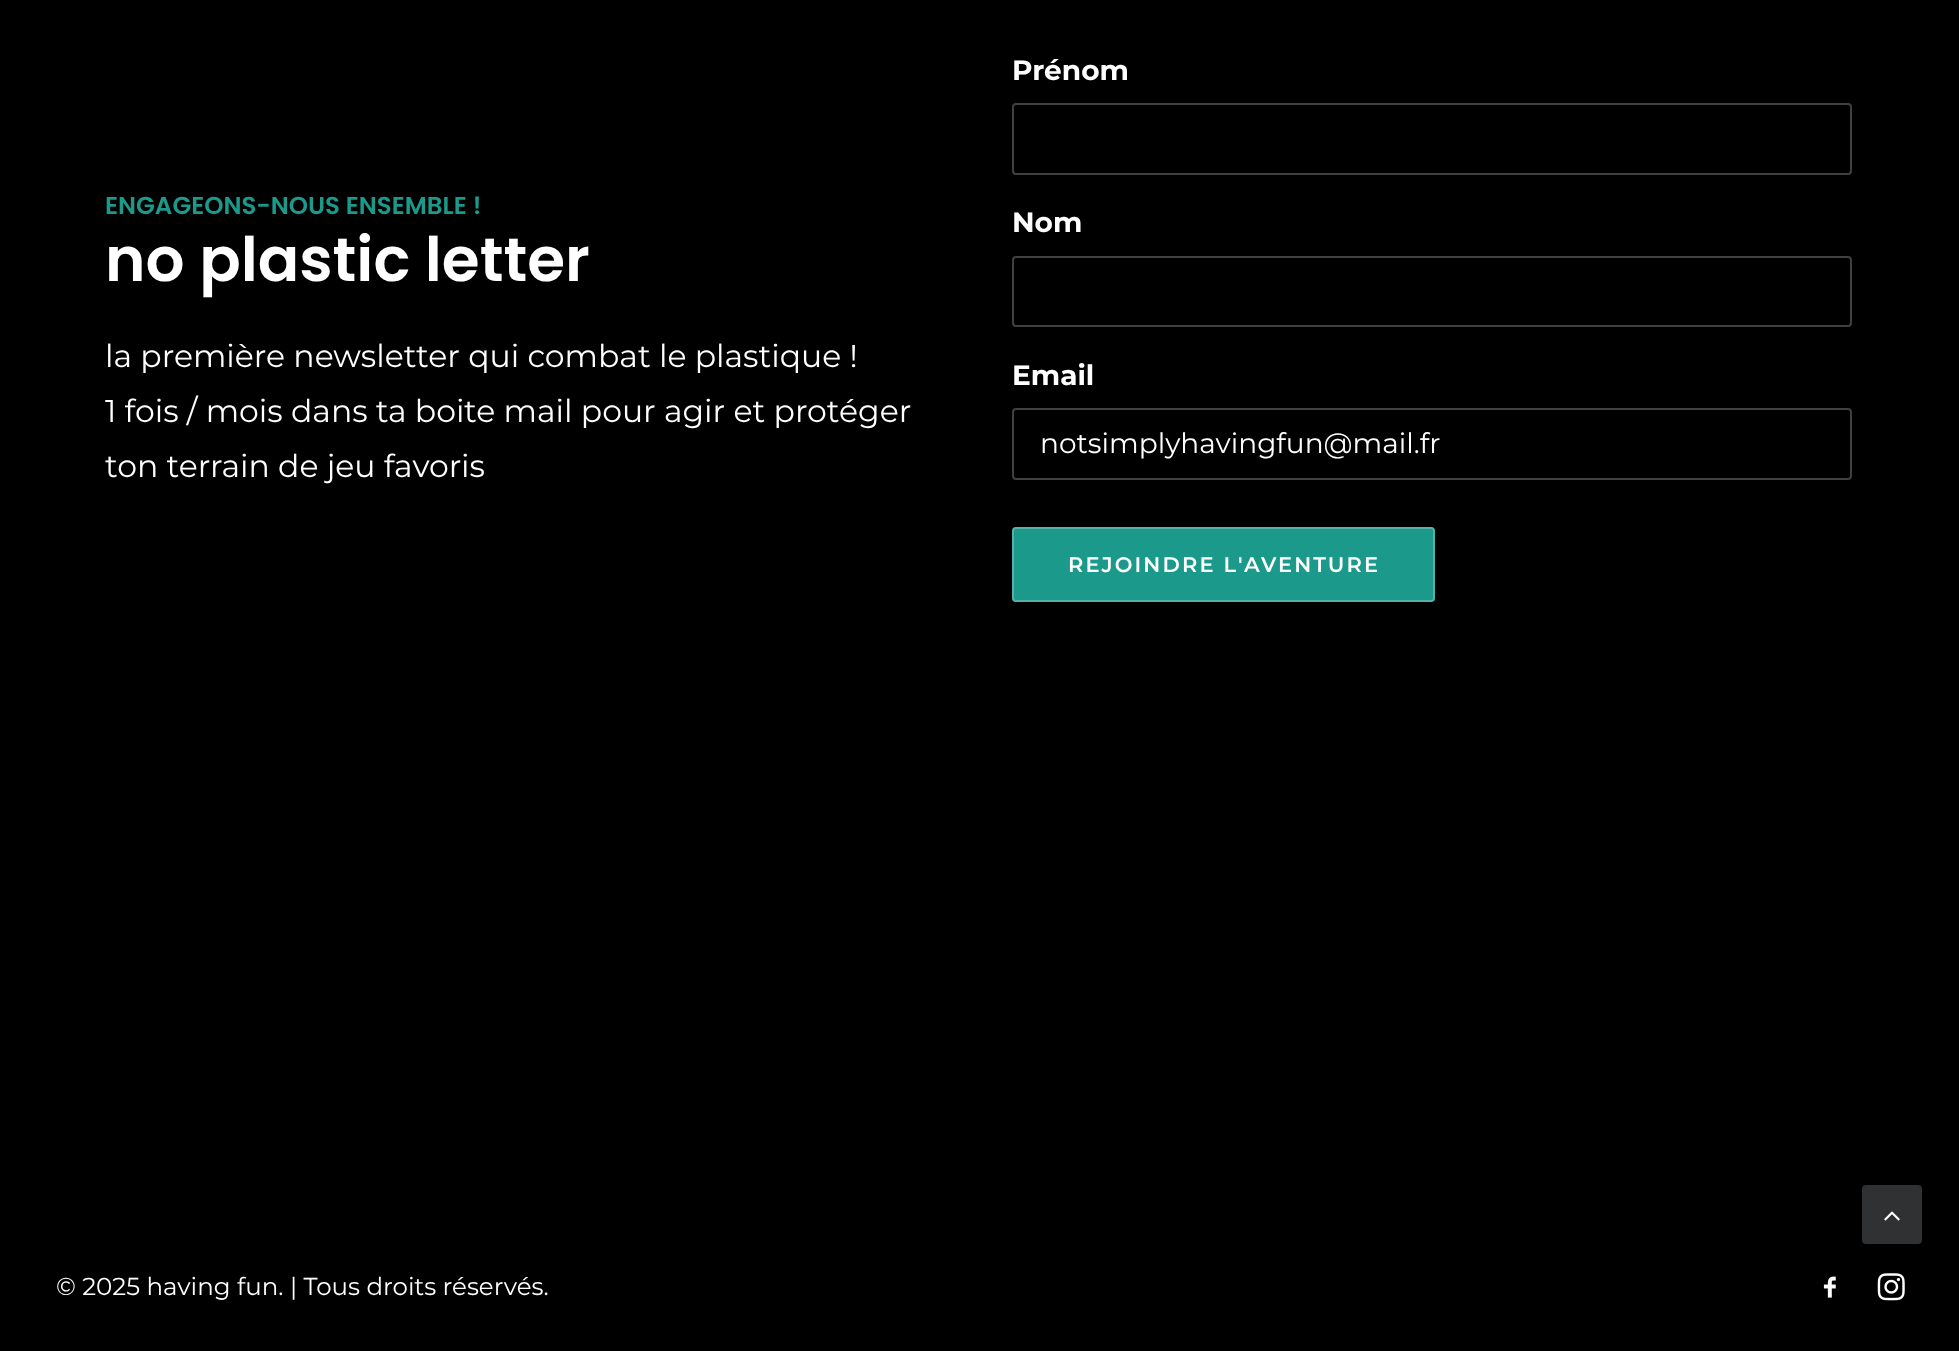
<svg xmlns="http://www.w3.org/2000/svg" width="1959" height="1351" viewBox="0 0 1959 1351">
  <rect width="100%" height="100%" fill="rgb(0,0,0)"/>
  <text x="105" y="214" font-family="Poppins" font-size="24.5" font-weight="600" fill="rgb(27,153,139)">ENGAGEONS-NOUS ENSEMBLE !</text>
  <text x="105" y="281" font-family="Poppins" font-size="61.25" font-weight="600" fill="rgb(255,255,255)">no plastic letter</text>
  <g font-family="Montserrat" font-size="31.5" fill="rgb(255,255,255)">
    <text>
      <tspan x="105" y="367">la première newsletter qui combat le plastique !</tspan>
      <tspan x="105" y="422">1 fois / mois dans ta boite mail pour agir et protéger</tspan>
      <tspan x="105" y="477">ton terrain de jeu favoris</tspan>
    </text>
  </g>
  <text x="1012" y="80" font-family="Montserrat" font-size="28" font-weight="bold" fill="rgb(255,255,255)">Prénom</text>
  <rect x="1013" y="104" width="838" height="70" rx="3" fill="none" stroke="rgb(64,64,64)" stroke-width="2"/>
  <text x="1012" y="232" font-family="Montserrat" font-size="28" font-weight="bold" fill="rgb(255,255,255)">Nom</text>
  <rect x="1013" y="257" width="838" height="69" rx="3" fill="none" stroke="rgb(64,64,64)" stroke-width="2"/>
  <text x="1012" y="385" font-family="Montserrat" font-size="28" font-weight="bold" fill="rgb(255,255,255)">Email</text>
  <rect x="1013" y="409" width="838" height="70" rx="3" fill="none" stroke="rgb(64,64,64)" stroke-width="2"/>
  <text x="1040" y="453" font-family="Montserrat" font-size="28" fill="rgb(255,255,255)">notsimplyhavingfun@mail.fr</text>
  <rect x="1012" y="527" width="423" height="75" rx="4" fill="rgb(27,153,139)"/>
  <rect x="1013" y="528" width="421" height="73" rx="3" fill="none" stroke="rgba(255,255,255,0.25)" stroke-width="2"/>
  <text x="1068" y="572" font-family="Montserrat" font-size="21" font-weight="600" letter-spacing="2.1" fill="rgb(255,255,255)">REJOINDRE L'AVENTURE</text>
  <text x="56" y="1295" font-family="Montserrat" font-size="24.5" fill="rgb(255,255,255)">© 2025 having fun. | Tous droits réservés.</text>
  <image x="1823" y="1276" width="13" height="22" href="pic1.png"/>
  <image x="1877" y="1273" width="28" height="28" href="pic2.png"/>
  <rect x="1863" y="1186" width="58" height="57" rx="3" fill="rgb(48,49,51)" stroke="rgb(48,49,51)" stroke-width="2"/>
  <image x="1884" y="1211" width="16" height="10" href="pic3.png"/>
</svg>
